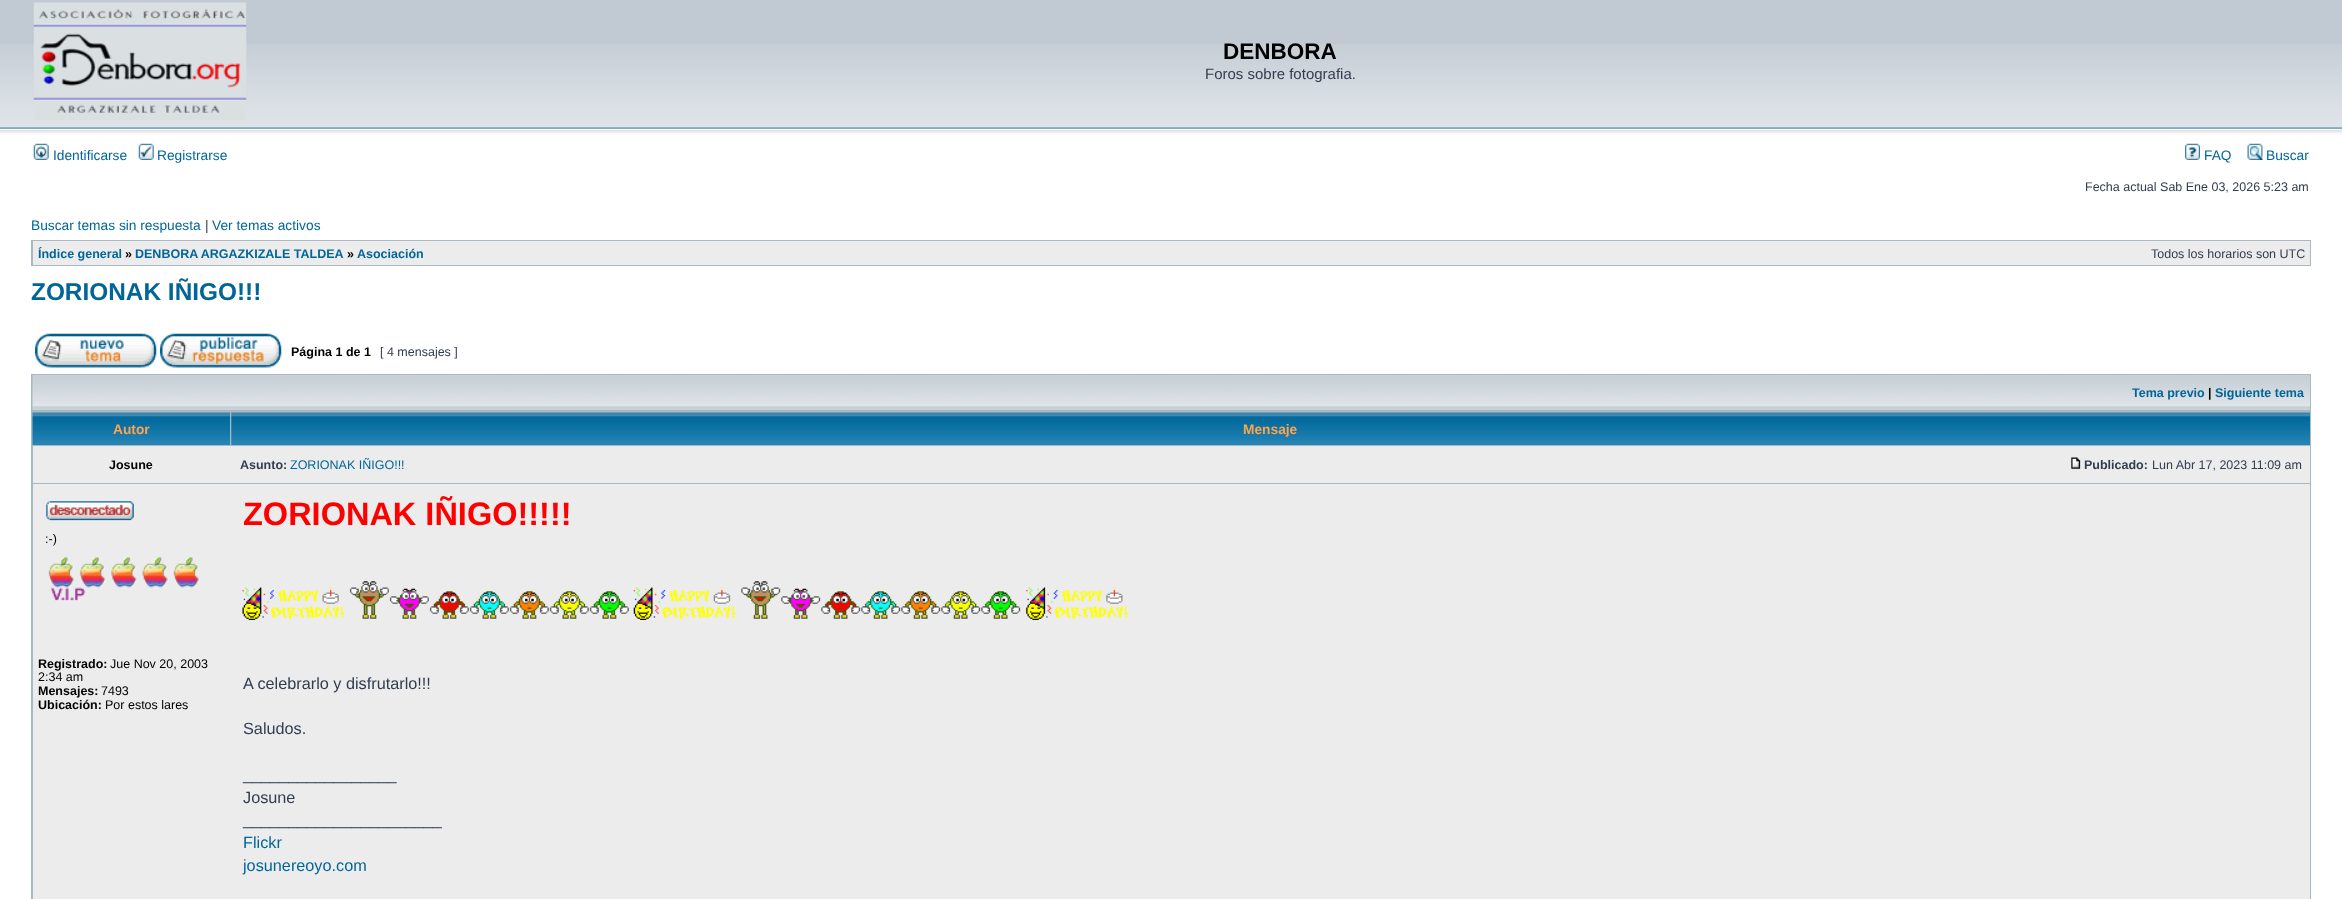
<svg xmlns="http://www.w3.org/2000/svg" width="2342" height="899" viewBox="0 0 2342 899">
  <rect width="100%" height="100%" fill="rgb(255,255,255)"/>
  <rect x="0" y="0" width="2342" height="44" fill="rgb(193,202,210)"/>
  <image x="0" y="44" width="2342" height="97" href="pic1.png"/>
  <image x="33" y="2" width="214" height="118" href="pic2.png"/>
  <text x="1223" y="59" font-family="Liberation Sans" font-size="22.5" font-weight="bold" fill="rgb(0,0,0)">DENBORA</text>
  <text x="1205" y="79" font-family="Liberation Sans" font-size="15" fill="rgb(50,61,79)">Foros sobre fotografia.</text>
  <image x="33" y="143" width="16" height="17" href="pic3.png"/>
  <text x="53" y="160" font-family="Liberation Sans" font-size="13.75" fill="rgb(0,101,151)">Identificarse</text>
  <image x="138" y="143" width="16" height="17" href="pic4.png"/>
  <text x="157" y="160" font-family="Liberation Sans" font-size="13.75" fill="rgb(0,101,151)">Registrarse</text>
  <image x="2185" y="143" width="15" height="17" href="pic5.png"/>
  <text x="2204" y="160" font-family="Liberation Sans" font-size="13.75" fill="rgb(0,101,151)">FAQ</text>
  <image x="2247" y="143" width="16" height="17" href="pic6.png"/>
  <text x="2266" y="160" font-family="Liberation Sans" font-size="13.75" fill="rgb(0,101,151)">Buscar</text>
  <text x="2085" y="191" font-family="Liberation Sans" font-size="12.5" fill="rgb(50,61,79)">Fecha actual Sab Ene 03, 2026 5:23 am</text>
  <text x="31" y="230" font-family="Liberation Sans" font-size="13.75" fill="rgb(0,101,151)">Buscar temas sin respuesta</text>
  <text x="205" y="230" font-family="Liberation Sans" font-size="13.75" fill="rgb(50,61,79)">|</text>
  <text x="212" y="230" font-family="Liberation Sans" font-size="13.75" fill="rgb(0,101,151)">Ver temas activos</text>
  <rect x="31" y="240" width="2280" height="26" fill="rgb(169,184,194)"/>
  <rect x="33" y="241" width="2277" height="24" fill="rgb(236,236,236)"/>
  <text x="38" y="258" font-family="Liberation Sans" font-size="12.5" font-weight="bold" fill="rgb(0,101,151)">Índice general</text>
  <text x="125" y="258" font-family="Liberation Sans" font-size="12.5" font-weight="bold" fill="rgb(0,0,0)">»</text>
  <text x="135" y="258" font-family="Liberation Sans" font-size="12.5" font-weight="bold" fill="rgb(0,101,151)">DENBORA ARGAZKIZALE TALDEA</text>
  <text x="347" y="258" font-family="Liberation Sans" font-size="12.5" font-weight="bold" fill="rgb(0,0,0)">»</text>
  <text x="357" y="258" font-family="Liberation Sans" font-size="12.5" font-weight="bold" fill="rgb(0,101,151)">Asociación</text>
  <text x="2151" y="258" font-family="Liberation Sans" font-size="12.5" fill="rgb(50,61,79)">Todos los horarios son UTC</text>
  <text x="31" y="300" font-family="Liberation Sans" font-size="24.4" font-weight="bold" fill="rgb(0,101,151)">ZORIONAK IÑIGO!!!</text>
  <image x="35" y="333" width="122" height="35" href="pic7.png"/>
  <image x="160" y="333" width="122" height="35" href="pic8.png"/>
  <text x="291" y="356" font-family="Liberation Sans" font-size="12.5" font-weight="bold" fill="rgb(0,0,0)">Página 1 de 1</text>
  <text x="380" y="356" font-family="Liberation Sans" font-size="12.5" fill="rgb(50,61,79)">[ 4 mensajes ]</text>
  <rect x="31" y="374" width="2280" height="525" fill="rgb(169,184,194)"/>
  <image x="32" y="375" width="2278" height="35" href="pic9.png"/>
  <text x="2132" y="397" font-family="Liberation Sans" font-size="12.5" font-weight="bold" fill="rgb(0,101,151)">Tema previo</text>
  <text x="2208" y="397" font-family="Liberation Sans" font-size="12.5" font-weight="bold" fill="rgb(0,0,0)">|</text>
  <text x="2215" y="397" font-family="Liberation Sans" font-size="12.5" font-weight="bold" fill="rgb(0,101,151)">Siguiente tema</text>
  <image x="32" y="412" width="198" height="33" href="pic10.png"/>
  <text x="113" y="434" font-family="Liberation Sans" font-size="13.75" font-weight="bold" fill="rgb(255,163,79)">Autor</text>
  <image x="231" y="412" width="2079" height="33" href="pic11.png"/>
  <text x="1243" y="434" font-family="Liberation Sans" font-size="13.75" font-weight="bold" fill="rgb(255,163,79)">Mensaje</text>
  <rect x="33" y="446" width="2277" height="37" fill="rgb(236,236,236)"/>
  <text x="109" y="469" font-family="Liberation Sans" font-size="12.5" font-weight="bold" fill="rgb(0,0,0)">Josune</text>
  <text x="240" y="469" font-family="Liberation Sans" font-size="12.5" font-weight="bold" fill="rgb(50,61,79)">Asunto:</text>
  <text x="290" y="469" font-family="Liberation Sans" font-size="12.5" fill="rgb(0,101,151)">ZORIONAK IÑIGO!!!</text>
  <image x="2071" y="457" width="10" height="12" href="pic12.png"/>
  <text x="2084" y="469" font-family="Liberation Sans" font-size="12.5" font-weight="bold" fill="rgb(50,61,79)">Publicado:</text>
  <text x="2152" y="469" font-family="Liberation Sans" font-size="12.5" fill="rgb(50,61,79)">Lun Abr 17, 2023 11:09 am</text>
  <rect x="33" y="484" width="2277" height="415" fill="rgb(236,236,236)"/>
  <image x="46" y="501" width="88" height="20" href="pic13.png"/>
  <text x="45" y="543" font-family="Liberation Sans" font-size="12.5" fill="rgb(0,0,0)">:-)</text>
  <image x="48" y="557" width="151" height="44" href="pic14.png"/>
  <text x="38" y="668" font-family="Liberation Sans" font-size="12.5" font-weight="bold" fill="rgb(0,0,0)">Registrado:</text>
  <g font-family="Liberation Sans" font-size="12.5" fill="rgb(0,0,0)">
    <text x="110" y="668">Jue Nov 20, 2003</text>
    <text x="38" y="681">2:34 am</text>
  </g>
  <text x="38" y="695" font-family="Liberation Sans" font-size="12.5" font-weight="bold" fill="rgb(0,0,0)">Mensajes:</text>
  <text x="101" y="695" font-family="Liberation Sans" font-size="12.5" fill="rgb(0,0,0)">7493</text>
  <text x="38" y="709" font-family="Liberation Sans" font-size="12.5" font-weight="bold" fill="rgb(0,0,0)">Ubicación:</text>
  <text x="105" y="709" font-family="Liberation Sans" font-size="12.5" fill="rgb(0,0,0)">Por estos lares</text>
  <text x="243" y="525" font-family="Liberation Sans" font-size="32.5" font-weight="bold" fill="rgb(255,0,0)">ZORIONAK IÑIGO!!!!!</text>
  <image x="242" y="587" width="102" height="33" href="pic15.png"/>
  <image x="349" y="581" width="280" height="38" href="pic16.png"/>
  <image x="633" y="587" width="102" height="33" href="pic17.png"/>
  <image x="741" y="581" width="280" height="38" href="pic18.png"/>
  <image x="1026" y="587" width="102" height="33" href="pic19.png"/>
  <g font-family="Liberation Sans" font-size="16.25" fill="rgb(50,61,79)">
    <text x="243" y="689">A celebrarlo y disfrutarlo!!!</text>
    <text x="243" y="734">Saludos.</text>
    <text>
      <tspan x="243" y="780">_________________</tspan>
      <tspan x="243" y="803">Josune</tspan>
      <tspan x="243" y="825">______________________</tspan>
    </text>
  </g>
  <g font-family="Liberation Sans" font-size="16.25" fill="rgb(0,101,151)">
    <text>
      <tspan x="243" y="848">Flickr</tspan>
      <tspan x="243" y="871">josunereoyo.com</tspan>
    </text>
  </g>
</svg>
